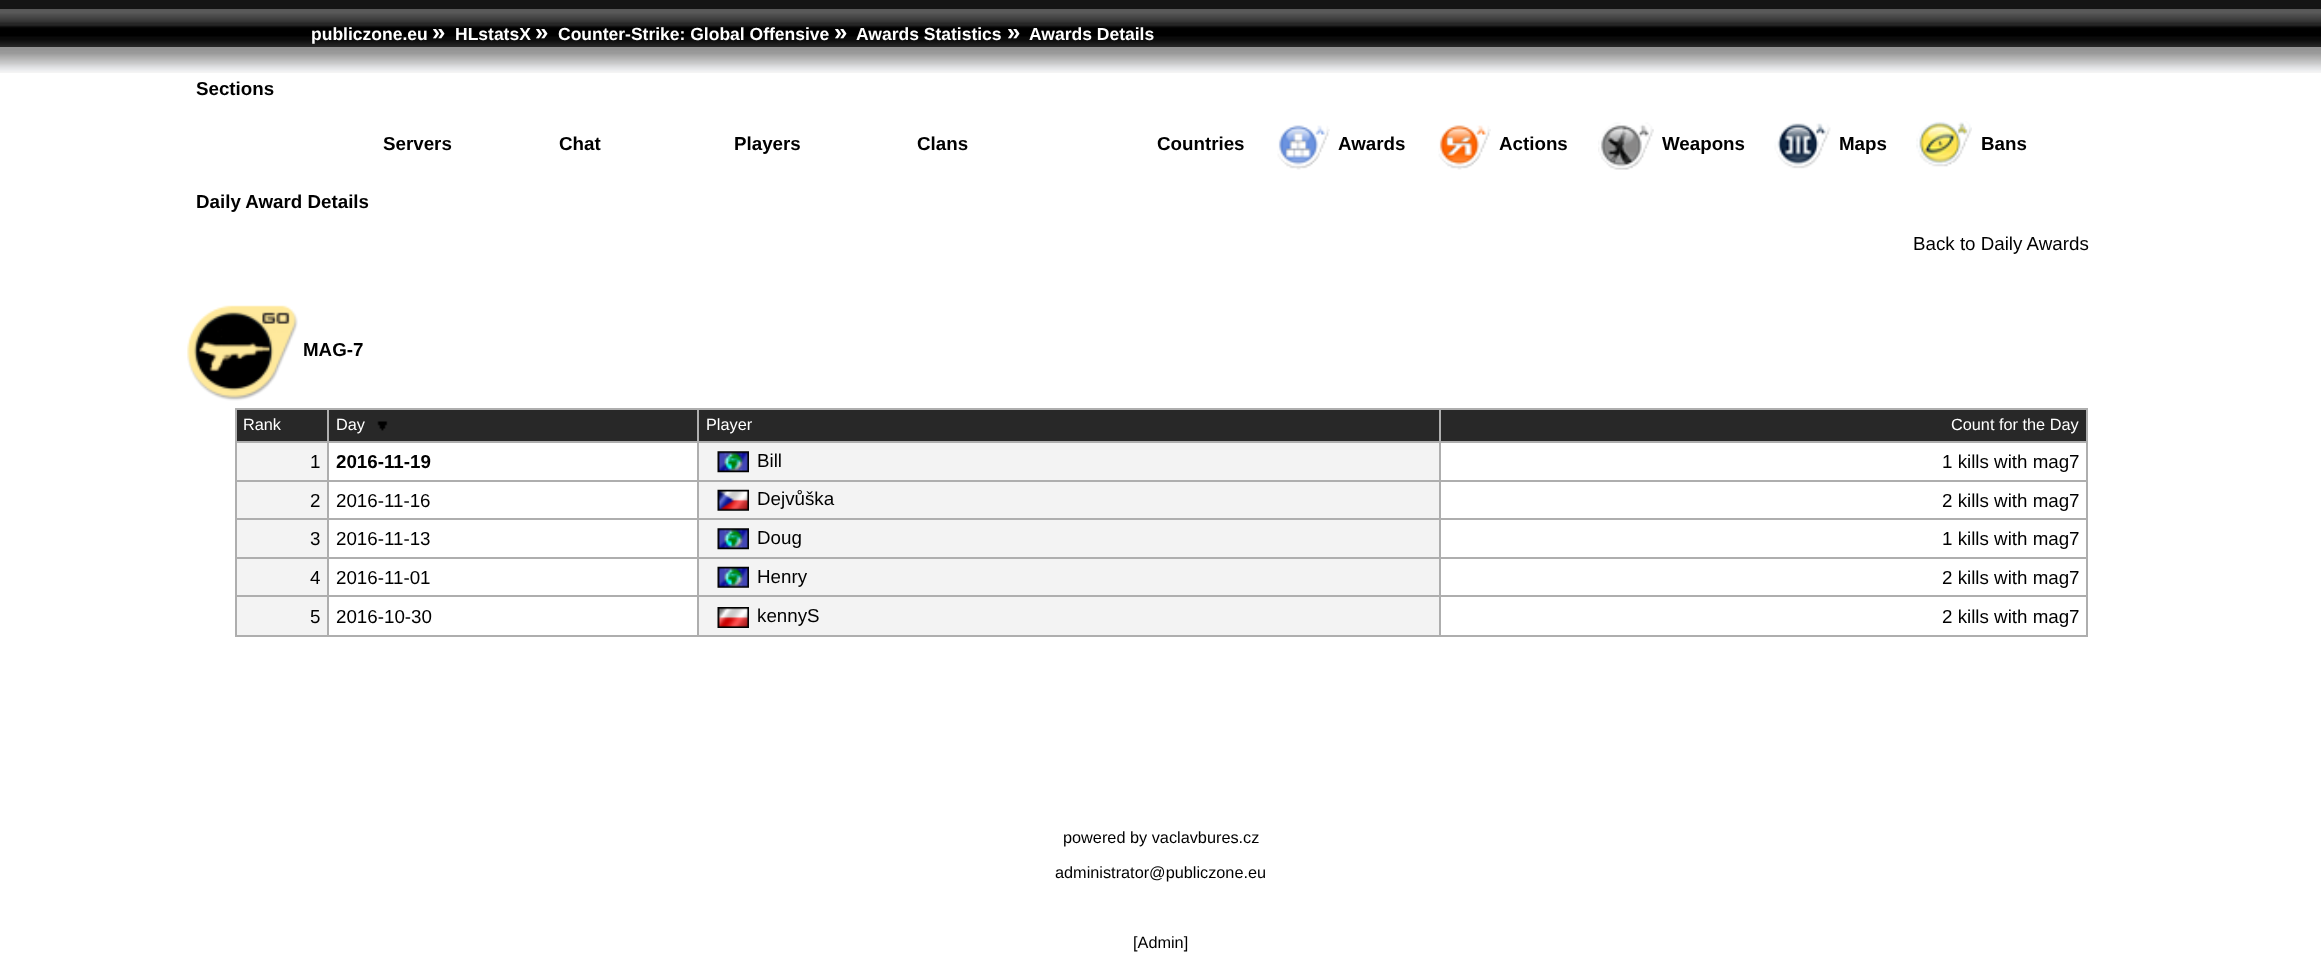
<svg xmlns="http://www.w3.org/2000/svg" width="2321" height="977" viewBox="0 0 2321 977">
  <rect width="100%" height="100%" fill="rgb(255,255,255)"/>
  <rect x="0" y="0" width="2321" height="9" fill="rgb(21,21,21)"/>
  <image x="0" y="9" width="2321" height="38" href="pic1.png"/>
  <text x="311" y="40" font-family="Liberation Sans" font-size="17.5" font-weight="bold" fill="rgb(255,255,255)">publiczone.eu</text>
  <text x="432" y="40" font-family="Liberation Sans" font-size="24" font-weight="bold" fill="rgb(255,255,255)">»</text>
  <text x="455" y="40" font-family="Liberation Sans" font-size="17.5" font-weight="bold" fill="rgb(255,255,255)">HLstatsX</text>
  <text x="535" y="40" font-family="Liberation Sans" font-size="24" font-weight="bold" fill="rgb(255,255,255)">»</text>
  <text x="558" y="40" font-family="Liberation Sans" font-size="17.5" font-weight="bold" fill="rgb(255,255,255)">Counter-Strike: Global Offensive</text>
  <text x="834" y="40" font-family="Liberation Sans" font-size="24" font-weight="bold" fill="rgb(255,255,255)">»</text>
  <text x="856" y="40" font-family="Liberation Sans" font-size="17.5" font-weight="bold" fill="rgb(255,255,255)">Awards Statistics</text>
  <text x="1007" y="40" font-family="Liberation Sans" font-size="24" font-weight="bold" fill="rgb(255,255,255)">»</text>
  <text x="1029" y="40" font-family="Liberation Sans" font-size="17.5" font-weight="bold" fill="rgb(255,255,255)">Awards Details</text>
  <image x="0" y="47" width="2321" height="26" href="pic2.png"/>
  <g font-family="Liberation Sans" font-size="18.75" font-weight="bold" fill="rgb(0,0,0)">
    <text x="196" y="95">Sections</text>
    <text x="383" y="150">Servers</text>
    <text x="559" y="150">Chat</text>
    <text x="734" y="150">Players</text>
    <text x="917" y="150">Clans</text>
    <text x="1157" y="150">Countries</text>
  </g>
  <image x="1277" y="125" width="53" height="45" href="pic3.png"/>
  <text x="1338" y="150" font-family="Liberation Sans" font-size="18.75" font-weight="bold" fill="rgb(0,0,0)">Awards</text>
  <image x="1438" y="125" width="53" height="45" href="pic4.png"/>
  <text x="1499" y="150" font-family="Liberation Sans" font-size="18.75" font-weight="bold" fill="rgb(0,0,0)">Actions</text>
  <image x="1598" y="122" width="56" height="48" href="pic5.png"/>
  <text x="1662" y="150" font-family="Liberation Sans" font-size="18.75" font-weight="bold" fill="rgb(0,0,0)">Weapons</text>
  <image x="1774" y="123" width="57" height="46" href="pic6.png"/>
  <text x="1839" y="150" font-family="Liberation Sans" font-size="18.75" font-weight="bold" fill="rgb(0,0,0)">Maps</text>
  <image x="1916" y="121" width="56" height="46" href="pic7.png"/>
  <g font-family="Liberation Sans" font-size="18.75" font-weight="bold" fill="rgb(0,0,0)">
    <text x="1981" y="150">Bans</text>
    <text x="196" y="208">Daily Award Details</text>
  </g>
  <text x="1913" y="250" font-family="Liberation Sans" font-size="18.75" fill="rgb(0,0,0)">Back to Daily Awards</text>
  <image x="187" y="305" width="111" height="96" href="pic8.png"/>
  <text x="303" y="356" font-family="Liberation Sans" font-size="18.75" font-weight="bold" fill="rgb(0,0,0)">MAG-7</text>
  <rect x="235" y="408" width="1853" height="2" fill="rgb(174,174,174)"/>
  <rect x="2086" y="408" width="2" height="229" fill="rgb(174,174,174)"/>
  <rect x="235" y="635" width="1853" height="2" fill="rgb(174,174,174)"/>
  <rect x="235" y="408" width="2" height="229" fill="rgb(174,174,174)"/>
  <rect x="237" y="410" width="1849" height="31" fill="rgb(40,40,40)"/>
  <rect x="235" y="441" width="1853" height="2" fill="rgb(174,174,174)"/>
  <g font-family="Liberation Sans" font-size="16.3" fill="rgb(255,255,255)">
    <text x="243" y="430">Rank</text>
    <text x="336" y="430">Day</text>
  </g>
  <image x="377" y="421" width="11" height="10" href="pic9.png"/>
  <g font-family="Liberation Sans" font-size="16.3" fill="rgb(255,255,255)">
    <text x="706" y="430">Player</text>
    <text x="1951" y="430">Count for the Day</text>
  </g>
  <rect x="237" y="443" width="90" height="37" fill="rgb(243,243,243)"/>
  <text x="310" y="468" font-family="Liberation Sans" font-size="18.75" fill="rgb(0,0,0)">1</text>
  <rect x="1439" y="480" width="649" height="2" fill="rgb(174,174,174)"/>
  <rect x="1439" y="518" width="649" height="2" fill="rgb(174,174,174)"/>
  <rect x="1439" y="557" width="649" height="2" fill="rgb(174,174,174)"/>
  <rect x="1439" y="595" width="649" height="2" fill="rgb(174,174,174)"/>
  <rect x="1439" y="595" width="2" height="42" fill="rgb(174,174,174)"/>
  <rect x="697" y="595" width="743" height="2" fill="rgb(174,174,174)"/>
  <rect x="1439" y="557" width="2" height="40" fill="rgb(174,174,174)"/>
  <rect x="697" y="557" width="743" height="2" fill="rgb(174,174,174)"/>
  <rect x="1439" y="518" width="2" height="40" fill="rgb(174,174,174)"/>
  <rect x="697" y="518" width="743" height="2" fill="rgb(174,174,174)"/>
  <rect x="1439" y="480" width="2" height="40" fill="rgb(174,174,174)"/>
  <rect x="697" y="480" width="743" height="2" fill="rgb(174,174,174)"/>
  <rect x="697" y="595" width="2" height="42" fill="rgb(174,174,174)"/>
  <rect x="327" y="595" width="371" height="2" fill="rgb(174,174,174)"/>
  <rect x="697" y="557" width="2" height="40" fill="rgb(174,174,174)"/>
  <rect x="327" y="557" width="371" height="2" fill="rgb(174,174,174)"/>
  <rect x="697" y="518" width="2" height="40" fill="rgb(174,174,174)"/>
  <rect x="327" y="518" width="371" height="2" fill="rgb(174,174,174)"/>
  <rect x="697" y="480" width="2" height="40" fill="rgb(174,174,174)"/>
  <rect x="327" y="480" width="371" height="2" fill="rgb(174,174,174)"/>
  <rect x="327" y="595" width="2" height="42" fill="rgb(174,174,174)"/>
  <rect x="235" y="595" width="94" height="2" fill="rgb(174,174,174)"/>
  <rect x="327" y="557" width="2" height="40" fill="rgb(174,174,174)"/>
  <rect x="235" y="557" width="94" height="2" fill="rgb(174,174,174)"/>
  <rect x="327" y="518" width="2" height="40" fill="rgb(174,174,174)"/>
  <rect x="235" y="518" width="94" height="2" fill="rgb(174,174,174)"/>
  <rect x="327" y="480" width="2" height="40" fill="rgb(174,174,174)"/>
  <rect x="235" y="480" width="94" height="2" fill="rgb(174,174,174)"/>
  <rect x="327" y="408" width="2" height="73" fill="rgb(174,174,174)"/>
  <text x="336" y="468" font-family="Liberation Sans" font-size="18.75" font-weight="bold" fill="rgb(0,0,0)">2016-11-19</text>
  <rect x="699" y="443" width="740" height="37" fill="rgb(243,243,243)"/>
  <rect x="697" y="408" width="2" height="73" fill="rgb(174,174,174)"/>
  <image x="717" y="451" width="32" height="22" href="pic10.png"/>
  <text x="757" y="467" font-family="Liberation Sans" font-size="18.75" fill="rgb(0,0,0)">Bill</text>
  <rect x="1439" y="408" width="2" height="73" fill="rgb(174,174,174)"/>
  <text x="1942" y="468" font-family="Liberation Sans" font-size="18.75" fill="rgb(0,0,0)">1 kills with mag7</text>
  <rect x="237" y="482" width="90" height="36" fill="rgb(243,243,243)"/>
  <g font-family="Liberation Sans" font-size="18.75" fill="rgb(0,0,0)">
    <text x="310" y="507">2</text>
    <text x="336" y="507">2016-11-16</text>
  </g>
  <rect x="699" y="482" width="740" height="36" fill="rgb(243,243,243)"/>
  <image x="717" y="489" width="32" height="22" href="pic11.png"/>
  <g font-family="Liberation Sans" font-size="18.75" fill="rgb(0,0,0)">
    <text x="757" y="505">Dejvůška</text>
    <text x="1942" y="507">2 kills with mag7</text>
  </g>
  <rect x="237" y="520" width="90" height="37" fill="rgb(243,243,243)"/>
  <g font-family="Liberation Sans" font-size="18.75" fill="rgb(0,0,0)">
    <text x="310" y="545">3</text>
    <text x="336" y="545">2016-11-13</text>
  </g>
  <rect x="699" y="520" width="740" height="37" fill="rgb(243,243,243)"/>
  <image x="717" y="528" width="32" height="22" href="pic10.png"/>
  <g font-family="Liberation Sans" font-size="18.75" fill="rgb(0,0,0)">
    <text x="757" y="544">Doug</text>
    <text x="1942" y="545">1 kills with mag7</text>
  </g>
  <rect x="237" y="559" width="90" height="36" fill="rgb(243,243,243)"/>
  <g font-family="Liberation Sans" font-size="18.75" fill="rgb(0,0,0)">
    <text x="310" y="584">4</text>
    <text x="336" y="584">2016-11-01</text>
  </g>
  <rect x="699" y="559" width="740" height="36" fill="rgb(243,243,243)"/>
  <image x="717" y="566" width="32" height="22" href="pic12.png"/>
  <g font-family="Liberation Sans" font-size="18.75" fill="rgb(0,0,0)">
    <text x="757" y="583">Henry</text>
    <text x="1942" y="584">2 kills with mag7</text>
  </g>
  <rect x="237" y="597" width="90" height="38" fill="rgb(243,243,243)"/>
  <g font-family="Liberation Sans" font-size="18.75" fill="rgb(0,0,0)">
    <text x="310" y="623">5</text>
    <text x="336" y="623">2016-10-30</text>
  </g>
  <rect x="699" y="597" width="740" height="38" fill="rgb(243,243,243)"/>
  <image x="717" y="607" width="32" height="21" href="pic13.png"/>
  <g font-family="Liberation Sans" font-size="18.75" fill="rgb(0,0,0)">
    <text x="757" y="622">kennyS</text>
    <text x="1942" y="623">2 kills with mag7</text>
  </g>
  <g font-family="Liberation Sans" font-size="16.3" fill="rgb(0,0,0)">
    <text x="1063" y="843">powered by vaclavbures.cz</text>
    <text x="1055" y="878">administrator@publiczone.eu</text>
    <text x="1133" y="948">[Admin]</text>
  </g>
</svg>
